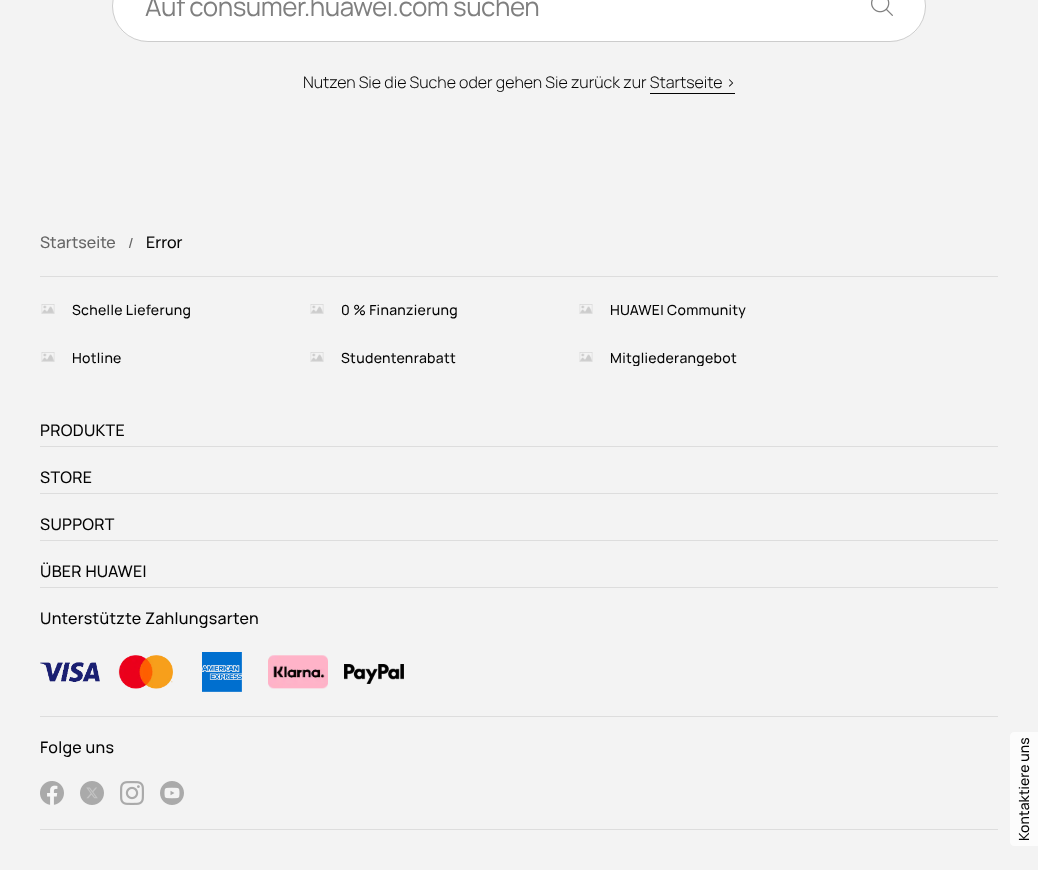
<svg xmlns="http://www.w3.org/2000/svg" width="1038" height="870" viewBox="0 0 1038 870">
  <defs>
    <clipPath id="clip1"><rect x="610" y="349" width="160" height="17"/></clipPath>
  </defs>
  <rect width="100%" height="100%" fill="rgb(243,243,243)"/>
  <rect x="112" y="-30" width="814" height="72" rx="36" fill="rgb(255,255,255)"/>
  <rect x="112.5" y="-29.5" width="813" height="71" rx="35.5" fill="none" stroke="rgba(0,0,0,0.2)"/>
  <text x="145" y="16" font-family="Manrope" font-size="26" letter-spacing="-0.5" fill="rgb(127,127,127)">Auf consumer.huawei.com suchen</text>
  <image x="871" y="0" width="22" height="16" href="pic1.png"/>
  <text x="303" y="88" font-family="Manrope" font-size="16" font-weight="300" fill="rgb(3,3,3)">Nutzen Sie die Suche oder gehen Sie zurück zur Startseite &gt;</text>
  <rect x="650" y="93" width="85" height="1" fill="rgb(3,3,3)"/>
  <rect x="40" y="276" width="958" height="1" fill="rgb(221,221,221)"/>
  <text x="40" y="248" font-family="Manrope" font-size="16" font-weight="500" fill="rgb(102,102,102)">Startseite</text>
  <text x="128" y="248" font-family="Manrope" font-size="14" font-weight="500" fill="rgb(102,102,102)">/</text>
  <text x="146" y="248" font-family="Manrope" font-size="16" font-weight="500" fill="rgb(3,3,3)">Error</text>
  <image x="41" y="304" width="14" height="10" href="pic2.png"/>
  <text x="72" y="315" font-family="Manrope" font-size="14" font-weight="500" letter-spacing="0.3" fill="rgb(3,3,3)">Schelle Lieferung</text>
  <image x="310" y="304" width="14" height="10" href="pic2.png"/>
  <text x="341" y="315" font-family="Manrope" font-size="14" font-weight="500" letter-spacing="0.3" fill="rgb(3,3,3)">0 % Finanzierung</text>
  <image x="579" y="304" width="14" height="10" href="pic2.png"/>
  <text x="610" y="315" font-family="Manrope" font-size="14" font-weight="500" letter-spacing="0.3" fill="rgb(3,3,3)">HUAWEI Community</text>
  <image x="41" y="352" width="14" height="10" href="pic2.png"/>
  <text x="72" y="363" font-family="Manrope" font-size="14" font-weight="500" letter-spacing="0.3" fill="rgb(3,3,3)">Hotline</text>
  <image x="310" y="352" width="14" height="10" href="pic2.png"/>
  <text x="341" y="363" font-family="Manrope" font-size="14" font-weight="500" letter-spacing="0.3" fill="rgb(3,3,3)">Studentenrabatt</text>
  <image x="579" y="352" width="14" height="10" href="pic2.png"/>
  <g clip-path="url(#clip1)">
    <text x="610" y="363" font-family="Manrope" font-size="14" font-weight="500" letter-spacing="0.3" fill="rgb(3,3,3)">Mitgliederangebot</text>
  </g>
  <rect x="40" y="446" width="958" height="1" fill="rgb(221,221,221)"/>
  <text x="40" y="436" font-family="Manrope" font-size="16" font-weight="500" letter-spacing="0.3" fill="rgb(3,3,3)">PRODUKTE</text>
  <rect x="40" y="493" width="958" height="1" fill="rgb(221,221,221)"/>
  <text x="40" y="483" font-family="Manrope" font-size="16" font-weight="500" letter-spacing="0.3" fill="rgb(3,3,3)">STORE</text>
  <rect x="40" y="540" width="958" height="1" fill="rgb(221,221,221)"/>
  <text x="40" y="530" font-family="Manrope" font-size="16" font-weight="500" letter-spacing="0.3" fill="rgb(3,3,3)">SUPPORT</text>
  <rect x="40" y="587" width="958" height="1" fill="rgb(221,221,221)"/>
  <text x="40" y="577" font-family="Manrope" font-size="16" font-weight="500" letter-spacing="0.3" fill="rgb(3,3,3)">ÜBER HUAWEI</text>
  <rect x="40" y="829" width="958" height="1" fill="rgb(221,221,221)"/>
  <rect x="40" y="716" width="958" height="1" fill="rgb(221,221,221)"/>
  <text x="40" y="624" font-family="Manrope" font-size="16" font-weight="500" letter-spacing="0.3" fill="rgb(3,3,3)">Unterstützte Zahlungsarten</text>
  <image x="40" y="662" width="60" height="20" href="pic3.png"/>
  <image x="118" y="655" width="55" height="34" href="pic4.png"/>
  <image x="202" y="652" width="40" height="40" href="pic5.png"/>
  <image x="268" y="655" width="60" height="34" href="pic6.png"/>
  <image x="344" y="664" width="60" height="20" href="pic7.png"/>
  <text x="40" y="753" font-family="Manrope" font-size="16" font-weight="500" letter-spacing="0.3" fill="rgb(3,3,3)">Folge uns</text>
  <image x="40" y="781" width="24" height="24" href="pic8.png"/>
  <image x="80" y="781" width="24" height="24" href="pic9.png"/>
  <image x="120" y="781" width="24" height="24" href="pic10.png"/>
  <image x="160" y="781" width="24" height="24" href="pic11.png"/>
  <path d="M1010 842V736C1010 734 1012 732 1014 732H1038V846H1014C1012 846 1010 844 1010 842Z" fill="rgb(252,252,252)"/>
  <text x="1029" y="841" transform="rotate(-90 1029 841)" font-family="Manrope" font-size="14" font-weight="500" fill="rgb(3,3,3)">Kontaktiere uns</text>
</svg>
